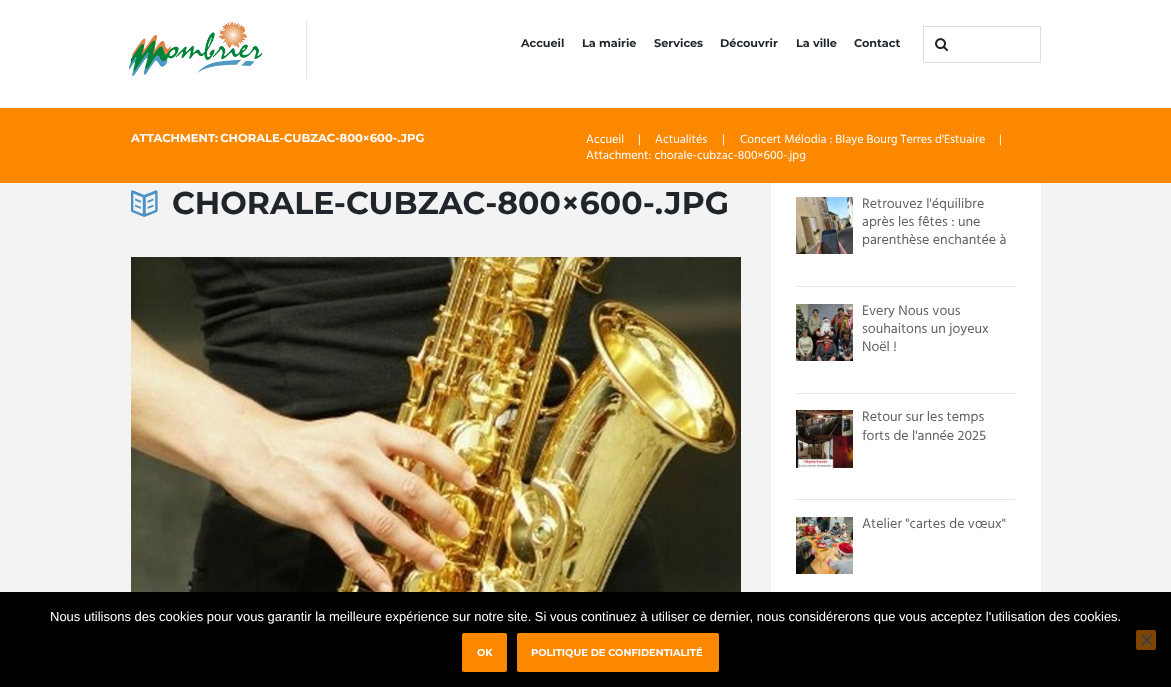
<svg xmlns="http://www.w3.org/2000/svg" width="1171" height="687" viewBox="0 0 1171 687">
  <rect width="100%" height="100%" fill="rgb(243,243,243)"/>
  <rect x="0" y="0" width="1171" height="108" fill="rgb(255,255,255)"/>
  <image x="129" y="21" width="133" height="55" href="pic1.png"/>
  <rect x="306" y="21" width="1" height="58" fill="rgb(230,230,230)"/>
  <g font-family="Montserrat" font-size="11.25" font-weight="bold" fill="rgb(31,37,43)">
    <text x="521" y="47">Accueil</text>
    <text x="582" y="47">La mairie</text>
    <text x="654" y="47">Services</text>
    <text x="720" y="47">Découvrir</text>
    <text x="796" y="47">La ville</text>
    <text x="854" y="47">Contact</text>
  </g>
  <rect x="923.5" y="26.5" width="117" height="36" fill="none" stroke="rgb(223,223,223)"/>
  <image x="935" y="38" width="13" height="14" href="pic2.png"/>
  <rect x="0" y="108" width="1171" height="75" fill="rgb(252,136,0)"/>
  <text x="131" y="142" word-spacing="-1" font-family="Montserrat" font-size="11.55" font-weight="bold" fill="rgb(255,255,255)">ATTACHMENT: CHORALE-CUBZAC-800×600-.JPG</text>
  <g font-family="Hind" font-size="12.2" fill="rgb(255,255,255)">
    <text x="586" y="143">Accueil</text>
    <text x="638" y="143">|</text>
    <text x="655" y="143">Actualités</text>
    <text x="722" y="143">|</text>
    <text x="740" y="143">Concert Mélodia : Blaye Bourg Terres d'Estuaire</text>
    <text x="999" y="143">|</text>
    <text x="586" y="159">Attachment: chorale-cubzac-800×600-.jpg</text>
  </g>
  <image x="131" y="190" width="27" height="27" href="pic3.png"/>
  <text x="172" y="214" font-family="Montserrat" font-size="31.5" font-weight="bold" fill="rgb(31,37,43)">CHORALE-CUBZAC-800×600-.JPG</text>
  <image x="131" y="257" width="610" height="335" href="pic4.png"/>
  <rect x="771" y="183" width="270" height="409" fill="rgb(255,255,255)"/>
  <image x="796" y="197" width="57" height="57" href="pic5.png"/>
  <g font-family="Hind" font-size="14" fill="rgb(97,97,97)">
    <text>
      <tspan x="862" y="208">Retrouvez l'équilibre</tspan>
      <tspan x="862" y="226">après les fêtes : une</tspan>
      <tspan x="862" y="244">parenthèse enchantée à</tspan>
    </text>
  </g>
  <rect x="796" y="286" width="219" height="1" fill="rgb(230,230,230)"/>
  <image x="796" y="304" width="57" height="57" href="pic6.png"/>
  <g font-family="Hind" font-size="14" fill="rgb(97,97,97)">
    <text>
      <tspan x="862" y="315">Every Nous vous</tspan>
      <tspan x="862" y="333">souhaitons un joyeux</tspan>
      <tspan x="862" y="351">Noël !</tspan>
    </text>
  </g>
  <rect x="796" y="393" width="219" height="1" fill="rgb(230,230,230)"/>
  <image x="796" y="410" width="57" height="58" href="pic7.png"/>
  <g font-family="Hind" font-size="14" fill="rgb(97,97,97)">
    <text>
      <tspan x="862" y="421">Retour sur les temps</tspan>
      <tspan x="862" y="440">forts de l'année 2025</tspan>
    </text>
  </g>
  <rect x="796" y="499" width="219" height="1" fill="rgb(230,230,230)"/>
  <image x="796" y="517" width="57" height="57" href="pic8.png"/>
  <text x="862" y="528" font-family="Hind" font-size="14" fill="rgb(97,97,97)">Atelier "cartes de vœux"</text>
  <rect x="0" y="592" width="1171" height="95" fill="rgb(0,0,0)"/>
  <text x="50" y="621" font-family="Liberation Sans" font-size="13" fill="rgb(255,255,255)">Nous utilisons des cookies pour vous garantir la meilleure expérience sur notre site. Si vous continuez à utiliser ce dernier, nous considérerons que vous acceptez l'utilisation des cookies.</text>
  <rect x="1136" y="630" width="20" height="20" rx="2" fill="rgb(126,68,0)"/>
  <path d="M1151.5 634L1153 635.5L1142.5 646L1141 645Z" fill="rgb(64,64,64)"/>
  <path d="M1141 635.5L1142.5 634L1153 645L1151.5 646Z" fill="rgb(64,64,64)"/>
  <rect x="463" y="634" width="43" height="37" rx="1" fill="rgb(252,136,0)" stroke="rgb(252,136,0)" stroke-width="2"/>
  <text x="477" y="656" font-family="Montserrat" font-size="9.9" font-weight="bold" fill="rgb(255,255,255)">OK</text>
  <rect x="518" y="634" width="200" height="37" rx="1" fill="rgb(252,136,0)" stroke="rgb(252,136,0)" stroke-width="2"/>
  <text x="531" y="656" font-family="Montserrat" font-size="9.9" font-weight="bold" fill="rgb(255,255,255)">POLITIQUE DE CONFIDENTIALITÉ</text>
</svg>
